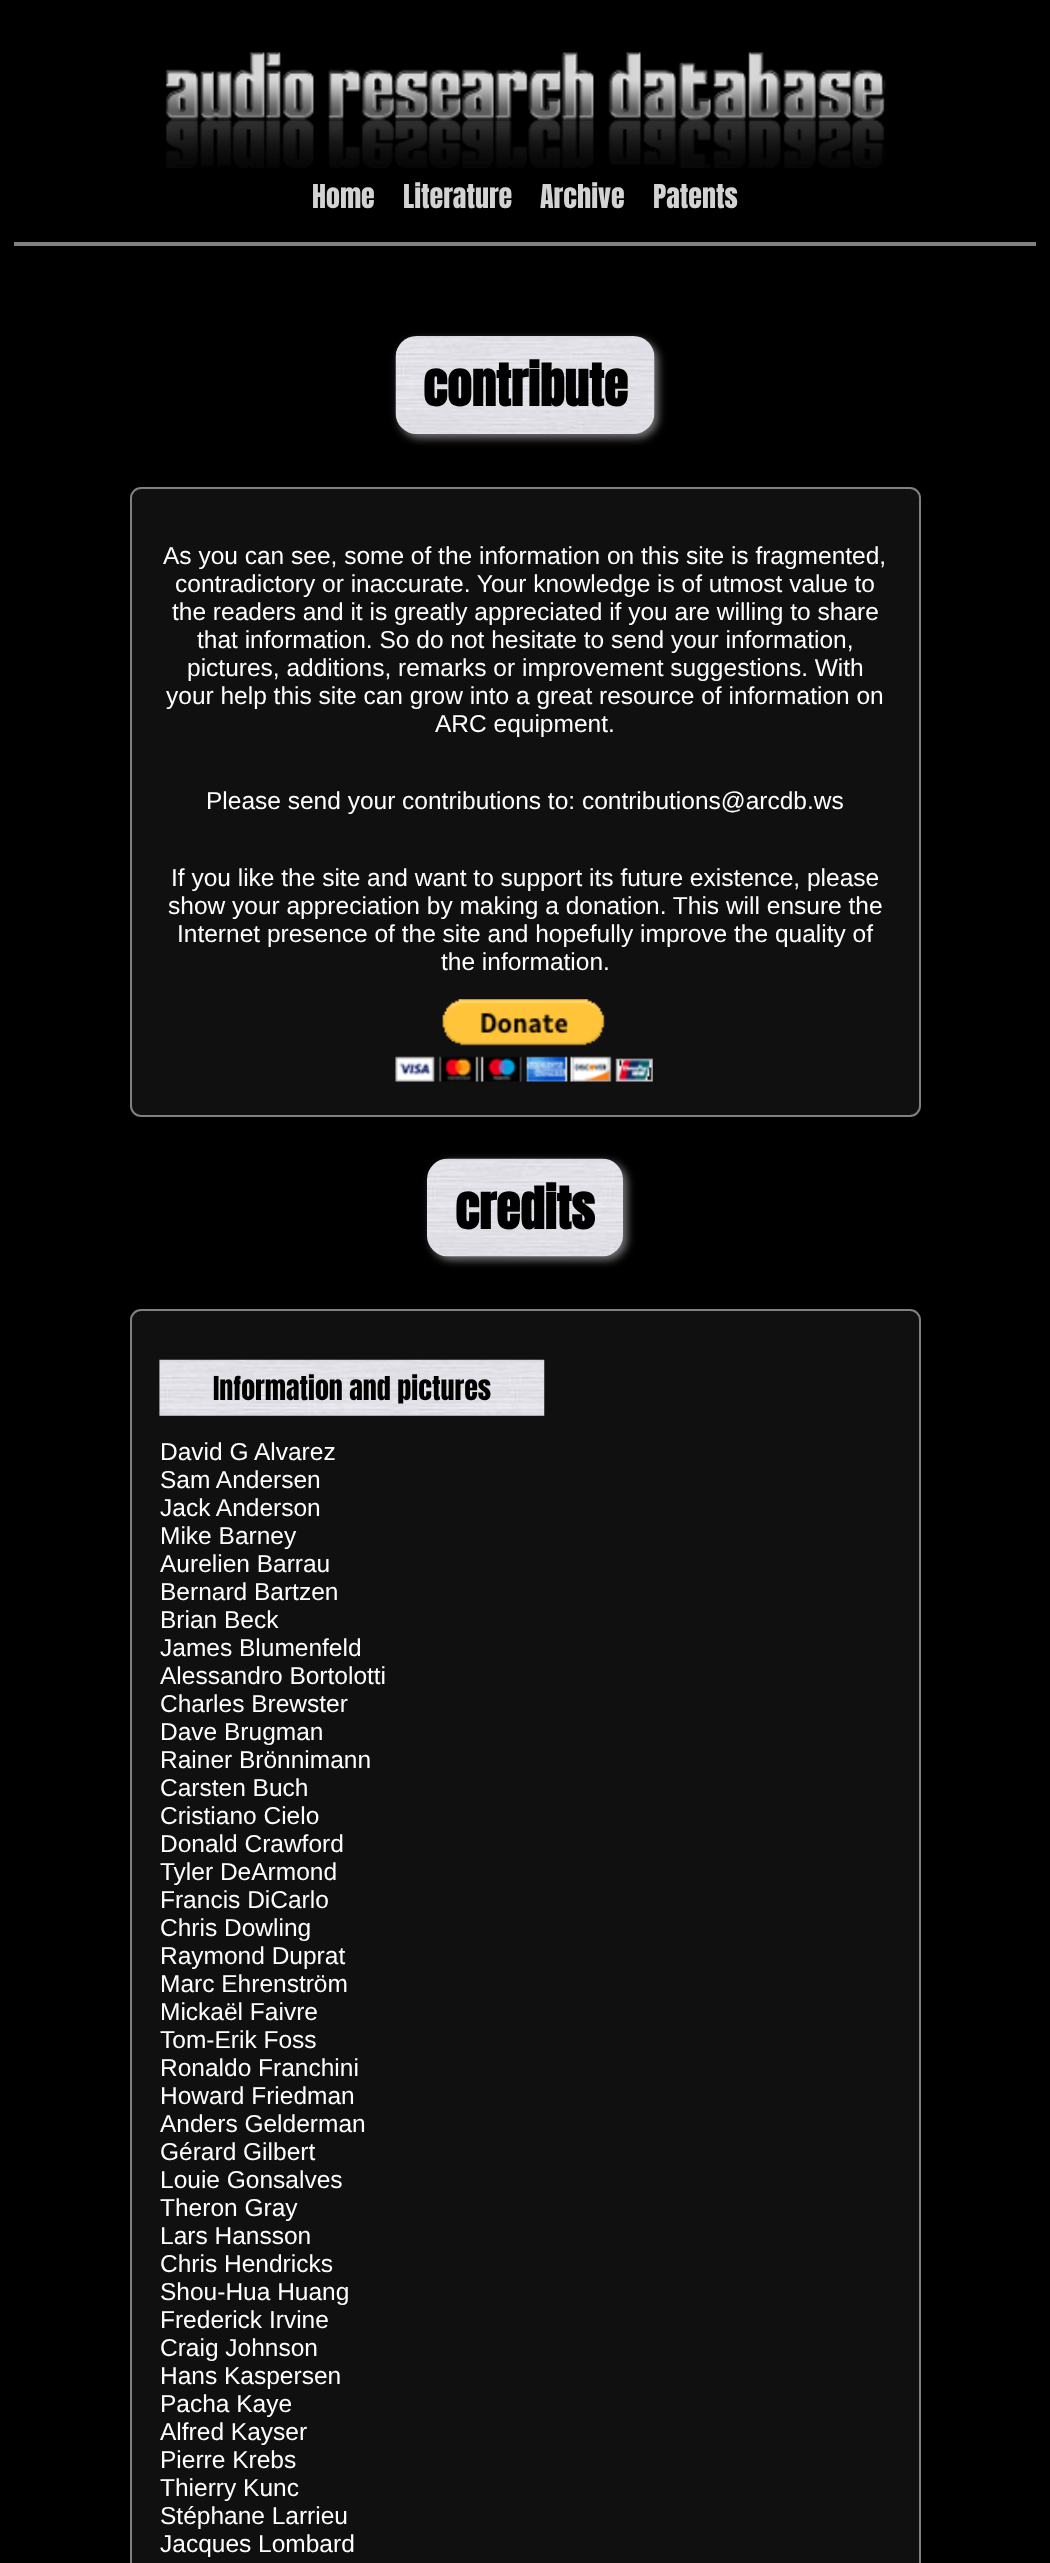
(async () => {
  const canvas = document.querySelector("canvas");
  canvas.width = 1050;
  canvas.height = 2563;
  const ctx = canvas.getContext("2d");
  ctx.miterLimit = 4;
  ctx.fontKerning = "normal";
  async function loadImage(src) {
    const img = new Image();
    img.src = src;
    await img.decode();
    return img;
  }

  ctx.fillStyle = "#000000";
  ctx.fillRect(0, 0, 1050, 2563);
  ctx.fillStyle = "#808080";
  ctx.fillRect(14, 242, 1022, 4);
  ctx.drawImage(await loadImage("img/1.png"), 165, 52, 721, 116);
  ctx.fillStyle = "#7a767a";
  ctx.filter = "blur(4.5px)";
  ctx.beginPath();
  ctx.roundRect(399, 340, 259, 98, 21);
  ctx.fill();
  ctx.filter = "none";
  ctx.drawImage(await loadImage("img/2.png"), 395, 336, 260, 98);
  ctx.fillStyle = "#101010";
  ctx.beginPath();
  ctx.roundRect(131, 488, 789, 628, 10);
  ctx.fill();
  ctx.strokeStyle = "#808080";
  ctx.lineWidth = 2;
  ctx.stroke();
  ctx.drawImage(await loadImage("img/3.png"), 395, 999, 258, 83);
  ctx.fillStyle = "#7a767a";
  ctx.filter = "blur(4.5px)";
  ctx.beginPath();
  ctx.roundRect(431, 1162, 196, 98, 21);
  ctx.fill();
  ctx.filter = "none";
  ctx.drawImage(await loadImage("img/4.png"), 427, 1158, 196, 99);
  ctx.fillStyle = "#101010";
  ctx.beginPath();
  ctx.roundRect(131, 1310, 789, 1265, 10);
  ctx.fill();
  ctx.stroke();
  ctx.drawImage(await loadImage("img/5.png"), 159, 1359, 386, 57);
  ctx.font = "28px Anton";
  ctx.fillStyle = "#d3d3d3";
  for (const [text, x, y] of [
    ["Home", 312, 208],
    ["Literature", 403, 208],
    ["Archive", 540, 208],
    ["Patents", 653, 208],
  ]) {
    ctx.fillText(text, x, y);
  }
  ctx.font = "bold 49px Anton";
  ctx.fillStyle = "#000000";
  ctx.fillText("contribute", 423, 406);
  ctx.font = "24.5px Liberation Sans";
  ctx.fillStyle = "#ffffff";
  for (const [text, x, y] of [
    ["As you can see, some of the information on this site is fragmented,", 163, 564],
    ["contradictory or inaccurate. Your knowledge is of utmost value to", 175, 592],
    ["the readers and it is greatly appreciated if you are willing to share", 172, 620],
    ["that information. So do not hesitate to send your information,", 197, 648],
    ["pictures, additions, remarks or improvement suggestions. With", 187, 676],
    ["your help this site can grow into a great resource of information on", 166, 704],
    ["ARC equipment.", 435, 732],
    ["Please send your contributions to: contributions@arcdb.ws", 206, 809],
    ["If you like the site and want to support its future existence, please", 171, 886],
    ["show your appreciation by making a donation. This will ensure the", 168, 914],
    ["Internet presence of the site and hopefully improve the quality of", 177, 942],
    ["the information.", 441, 970],
  ]) {
    ctx.fillText(text, x, y);
  }
  ctx.font = "bold 49px Anton";
  ctx.fillStyle = "#000000";
  ctx.fillText("credits", 455, 1229);
  ctx.font = "28px Anton";
  ctx.fillText("Information and pictures", 213, 1400);
  ctx.font = "24.5px Liberation Sans";
  ctx.fillStyle = "#ffffff";
  for (const [text, x, y] of [
    ["David G Alvarez", 160, 1460],
    ["Sam Andersen", 160, 1488],
    ["Jack Anderson", 160, 1516],
    ["Mike Barney", 160, 1544],
    ["Aurelien Barrau", 160, 1572],
    ["Bernard Bartzen", 160, 1600],
    ["Brian Beck", 160, 1628],
    ["James Blumenfeld", 160, 1656],
    ["Alessandro Bortolotti", 160, 1684],
    ["Charles Brewster", 160, 1712],
    ["Dave Brugman", 160, 1740],
    ["Rainer Brönnimann", 160, 1768],
    ["Carsten Buch", 160, 1796],
    ["Cristiano Cielo", 160, 1824],
    ["Donald Crawford", 160, 1852],
    ["Tyler DeArmond", 160, 1880],
    ["Francis DiCarlo", 160, 1908],
    ["Chris Dowling", 160, 1936],
    ["Raymond Duprat", 160, 1964],
    ["Marc Ehrenström", 160, 1992],
    ["Mickaël Faivre", 160, 2020],
    ["Tom-Erik Foss", 160, 2048],
    ["Ronaldo Franchini", 160, 2076],
    ["Howard Friedman", 160, 2104],
    ["Anders Gelderman", 160, 2132],
    ["Gérard Gilbert", 160, 2160],
    ["Louie Gonsalves", 160, 2188],
    ["Theron Gray", 160, 2216],
    ["Lars Hansson", 160, 2244],
    ["Chris Hendricks", 160, 2272],
    ["Shou-Hua Huang", 160, 2300],
    ["Frederick Irvine", 160, 2328],
    ["Craig Johnson", 160, 2356],
    ["Hans Kaspersen", 160, 2384],
    ["Pacha Kaye", 160, 2412],
    ["Alfred Kayser", 160, 2440],
    ["Pierre Krebs", 160, 2468],
    ["Thierry Kunc", 160, 2496],
    ["Stéphane Larrieu", 160, 2524],
    ["Jacques Lombard", 160, 2552],
  ]) {
    ctx.fillText(text, x, y);
  }
})();
